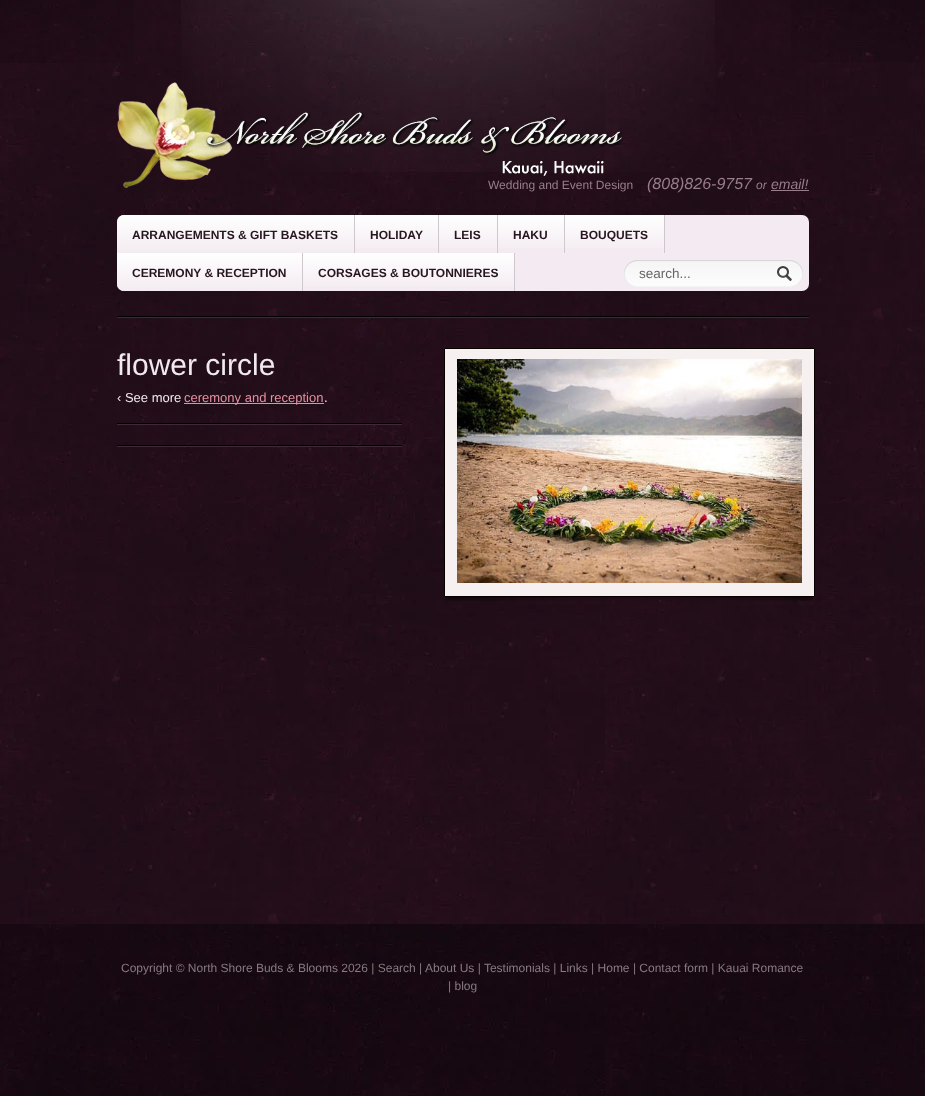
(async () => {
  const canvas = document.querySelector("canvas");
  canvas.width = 925;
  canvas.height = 1096;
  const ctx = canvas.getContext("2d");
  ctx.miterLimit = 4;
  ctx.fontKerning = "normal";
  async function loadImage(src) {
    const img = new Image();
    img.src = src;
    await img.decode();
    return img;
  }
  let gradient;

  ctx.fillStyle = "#ffffff";
  ctx.fillRect(0, 0, 925, 1096);
  ctx.drawImage(await loadImage("img/1.png"), 0, 0, 925, 924);
  ctx.drawImage(await loadImage("img/2.png"), 181, 0, 534, 172);
  ctx.drawImage(await loadImage("img/3.png"), 0, 0, 134, 63);
  ctx.drawImage(await loadImage("img/4.png"), 791, 0, 134, 62);
  ctx.fillStyle = "#3d2a38";
  ctx.fillRect(117, 317, 692, 1);
  ctx.drawImage(await loadImage("img/5.png"), 117, 82, 506, 106);
  ctx.fillStyle = "#987d8b";
  ctx.fillRect(771, 190, 38, 1);
  ctx.fillStyle = "#f3ebf1";
  ctx.beginPath();
  ctx.roundRect(117, 215, 692, 76, 7);
  ctx.fill();
  gradient = ctx.createLinearGradient(117, 215, 117, 253);
  gradient.addColorStop(0, "#ffffff");
  gradient.addColorStop(1, "#f3ebf1");
  ctx.fillStyle = gradient;
  ctx.beginPath();
  ctx.roundRect(117, 215, 238, 38, [7, 0, 0, 7]);
  ctx.fill();
  ctx.fillStyle = "#cec7cc";
  ctx.fillRect(354, 215, 1, 38);
  gradient = ctx.createLinearGradient(303, 253, 303, 291);
  gradient.addColorStop(0, "#ffffff");
  gradient.addColorStop(1, "#f3ebf1");
  ctx.fillStyle = gradient;
  ctx.fillRect(303, 253, 211, 33);
  ctx.fillStyle = "rgba(255, 255, 255, 0.2)";
  ctx.fillRect(353, 241, 1, 13);
  gradient = ctx.createLinearGradient(355, 215, 355, 253);
  gradient.addColorStop(0, "#ffffff");
  gradient.addColorStop(1, "#f3ebf1");
  ctx.fillStyle = gradient;
  ctx.fillRect(355, 215, 83, 33);
  ctx.fillStyle = "#cec7cc";
  ctx.fillRect(438, 215, 1, 38);
  ctx.fillStyle = "rgba(255, 255, 255, 0.2)";
  ctx.fillRect(437, 241, 1, 13);
  gradient = ctx.createLinearGradient(439, 215, 439, 253);
  gradient.addColorStop(0, "#ffffff");
  gradient.addColorStop(1, "#f3ebf1");
  ctx.fillStyle = gradient;
  ctx.fillRect(439, 215, 58, 33);
  ctx.fillStyle = "#cec7cc";
  ctx.fillRect(497, 215, 1, 38);
  ctx.fillStyle = "rgba(255, 255, 255, 0.2)";
  ctx.fillRect(496, 241, 1, 13);
  gradient = ctx.createLinearGradient(498, 215, 498, 253);
  gradient.addColorStop(0, "#ffffff");
  gradient.addColorStop(1, "#f3ebf1");
  ctx.fillStyle = gradient;
  ctx.fillRect(498, 215, 66, 33);
  ctx.fillStyle = "#cec7cc";
  ctx.fillRect(564, 215, 1, 38);
  ctx.fillStyle = "rgba(255, 255, 255, 0.2)";
  ctx.fillRect(563, 241, 1, 13);
  gradient = ctx.createLinearGradient(565, 215, 565, 253);
  gradient.addColorStop(0, "#ffffff");
  gradient.addColorStop(1, "#f3ebf1");
  ctx.fillStyle = gradient;
  ctx.fillRect(565, 215, 99, 33);
  ctx.fillStyle = "#cec7cc";
  ctx.fillRect(664, 215, 1, 38);
  ctx.fillStyle = "rgba(255, 255, 255, 0.2)";
  ctx.fillRect(663, 241, 1, 13);
  gradient = ctx.createLinearGradient(117, 253, 117, 291);
  gradient.addColorStop(0, "#ffffff");
  gradient.addColorStop(1, "#f3ebf1");
  ctx.fillStyle = gradient;
  ctx.beginPath();
  ctx.roundRect(117, 253, 186, 38, [0, 0, 0, 7]);
  ctx.fill();
  for (const [x, y, w, h, color] of [
    [302, 253, 1, 38, "#cec7cc"],
    [301, 279, 1, 12, "rgba(255, 255, 255, 0.2)"],
    [514, 253, 1, 38, "#cec7cc"],
    [513, 279, 1, 12, "rgba(255, 255, 255, 0.2)"],
  ]) {
    ctx.fillStyle = color;
    ctx.fillRect(x, y, w, h);
  }
  ctx.drawImage(await loadImage("img/6.png"), 624, 260, 179, 27);
  ctx.drawImage(await loadImage("img/7.png"), 777, 266, 15, 15);
  for (const [x, y, w, h, color] of [
    [117, 316, 692, 1, "#000000"],
    [117, 424, 285, 1, "#3d2a38"],
    [184, 403, 140, 1, "#e590a0"],
    [117, 423, 285, 1, "#000000"],
    [117, 446, 285, 1, "#3d2a38"],
    [117, 445, 285, 1, "#000000"],
  ]) {
    ctx.fillStyle = color;
    ctx.fillRect(x, y, w, h);
  }
  ctx.drawImage(await loadImage("img/8.png"), 445, 597, 368, 4);
  ctx.fillStyle = "#f7f0f1";
  ctx.beginPath();
  ctx.rect(444.5, 348.5, 370, 248);
  ctx.fill();
  ctx.strokeStyle = "#080000";
  ctx.stroke();
  ctx.drawImage(await loadImage("img/9.png"), 457, 359, 345, 224);
  ctx.drawImage(await loadImage("img/10.png"), 0, 924, 925, 172);
  ctx.font = "12px Liberation Sans";
  ctx.fillStyle = "#987d8b";
  ctx.fillText("Wedding and Event Design", 488, 189);
  ctx.font = "italic 16px Liberation Sans";
  ctx.fillText("(808)826-9757", 647, 189);
  ctx.font = "italic 12px Liberation Sans";
  ctx.fillText("or", 756, 189);
  ctx.font = "italic 14px Liberation Sans";
  ctx.fillText("email!", 771, 189);
  ctx.font = "bold 12px Liberation Sans";
  ctx.fillStyle = "#27161f";
  for (const [text, x, y] of [
    ["ARRANGEMENTS & GIFT BASKETS", 132, 239],
    ["HOLIDAY", 370, 239],
    ["LEIS", 454, 239],
    ["HAKU", 513, 239],
    ["BOUQUETS", 580, 239],
    ["CEREMONY & RECEPTION", 132, 277],
    ["CORSAGES & BOUTONNIERES", 318, 277],
  ]) {
    ctx.fillText(text, x, y);
  }
  ctx.font = "13.5px Liberation Sans";
  ctx.fillStyle = "#666666";
  ctx.fillText("search...", 639, 278);
  ctx.font = "30px Liberation Sans";
  ctx.fillStyle = "#f0e9f0";
  ctx.fillText("flower circle", 117, 375);
  ctx.font = "13px Liberation Sans";
  ctx.fillText("‹ See more", 117, 402);
  ctx.fillStyle = "#e590a0";
  ctx.fillText("ceremony and reception", 184, 402);
  ctx.fillStyle = "#f0e9f0";
  ctx.fillText(".", 324, 402);
  ctx.font = "12px Liberation Sans";
  ctx.fillStyle = "#897981";
  for (const [text, x, y] of [
    ["Copyright © North Shore Buds & Blooms 2026 | Search |", 121, 972],
    ["About Us | Testimonials | Links | Home | Contact form | Kauai Romance", 425, 972],
    ["| blog", 448, 990],
  ]) {
    ctx.fillText(text, x, y);
  }
})();
